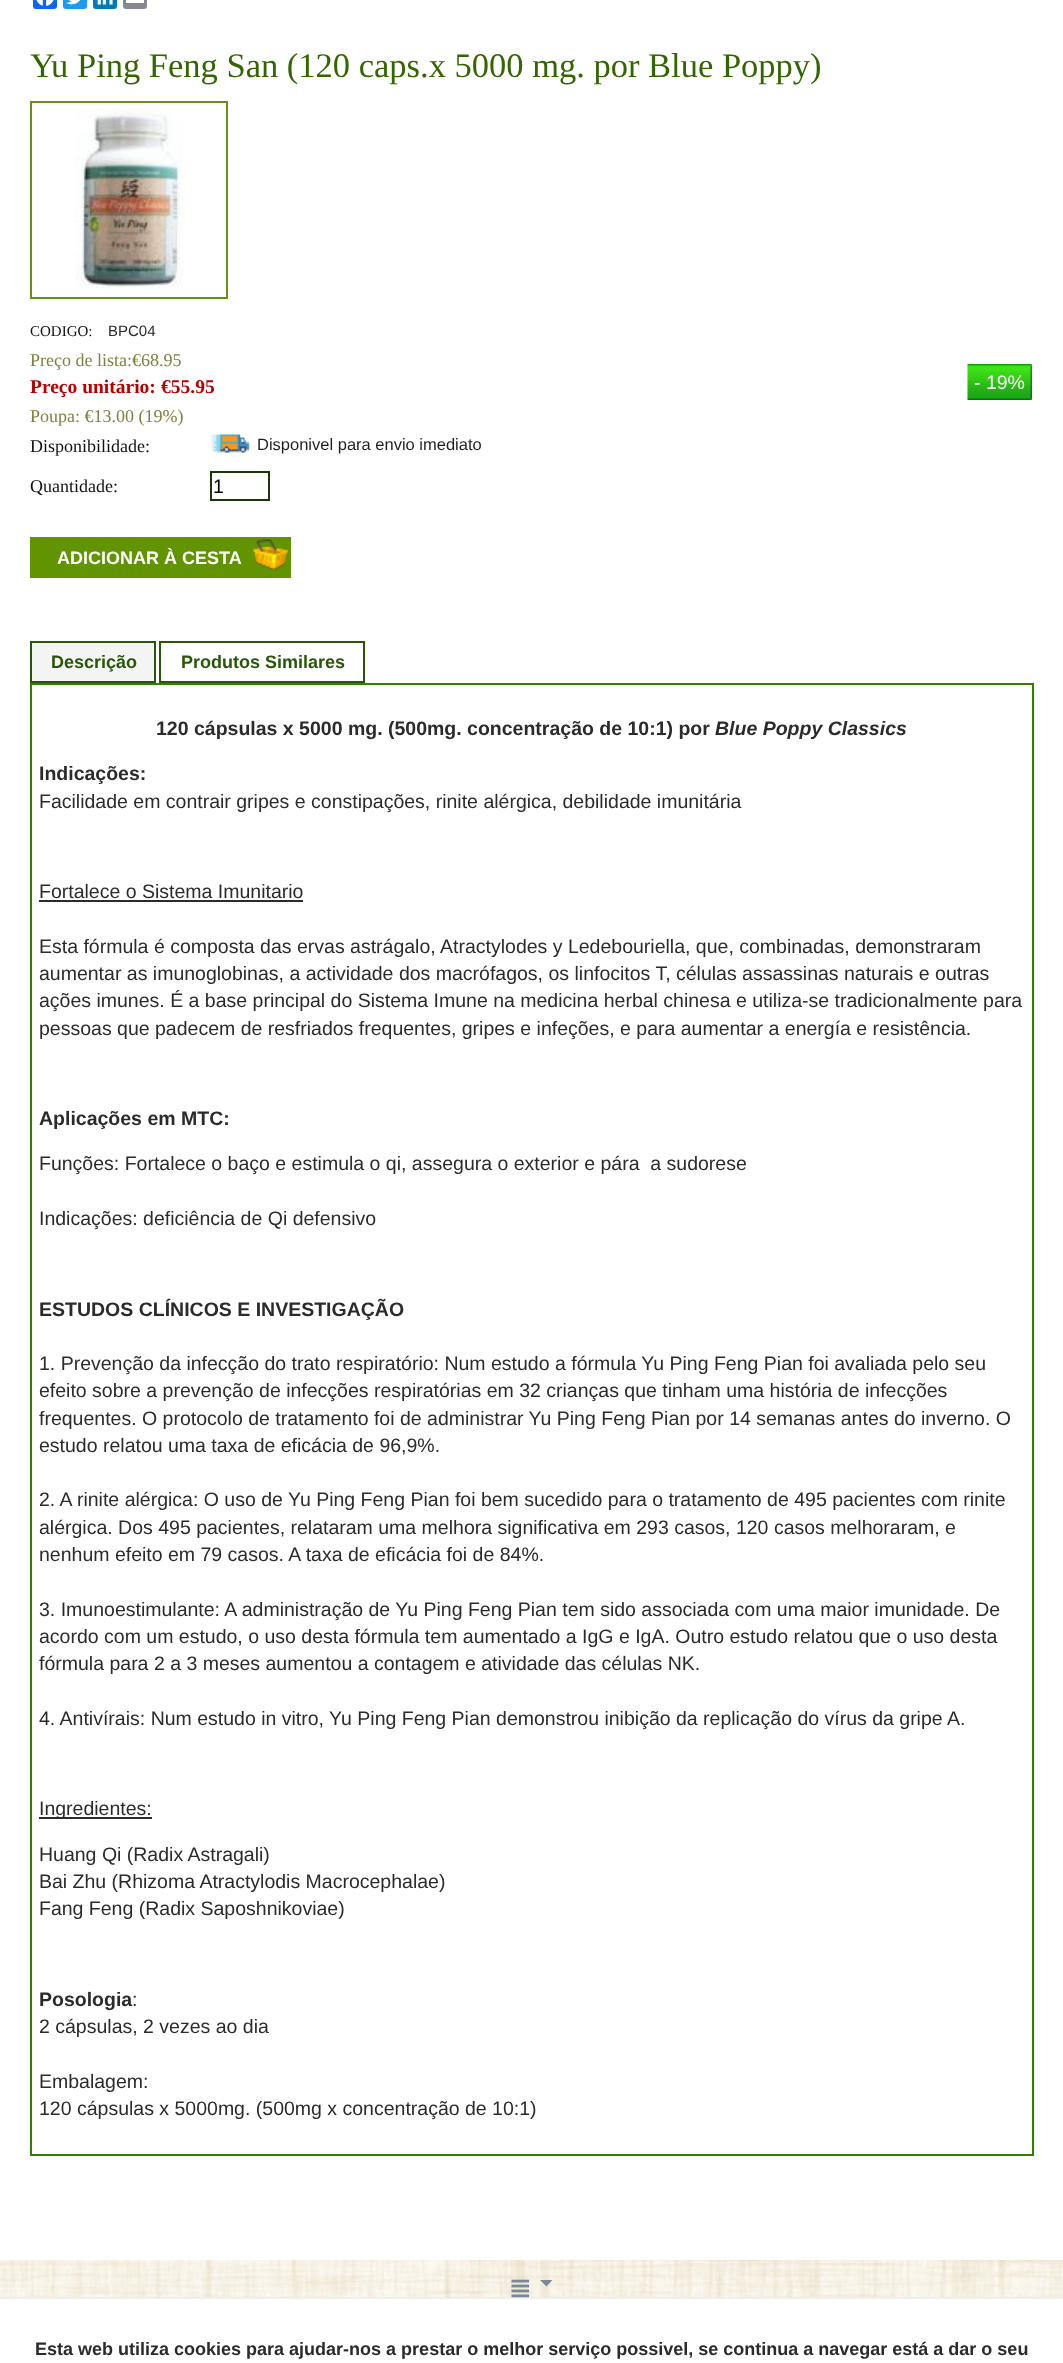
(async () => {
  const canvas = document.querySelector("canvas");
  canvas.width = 1063;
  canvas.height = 2363;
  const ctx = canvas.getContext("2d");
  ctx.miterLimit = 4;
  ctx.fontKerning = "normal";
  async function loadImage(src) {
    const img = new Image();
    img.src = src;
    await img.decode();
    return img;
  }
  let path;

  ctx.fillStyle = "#ffffff";
  ctx.fillRect(0, 0, 1063, 2363);
  ctx.fillStyle = "#0866ff";
  ctx.beginPath();
  ctx.roundRect(33, -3, 24, 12, 3);
  ctx.fill();
  ctx.drawImage(await loadImage("img/1.png"), 36, 0, 18, 6);
  ctx.fillStyle = "#1d9bf0";
  ctx.beginPath();
  ctx.roundRect(63, -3, 24, 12, 3);
  ctx.fill();
  ctx.drawImage(await loadImage("img/2.png"), 66, 0, 14, 5);
  ctx.fillStyle = "#007bb5";
  ctx.beginPath();
  ctx.roundRect(93, -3, 24, 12, 3);
  ctx.fill();
  ctx.drawImage(await loadImage("img/3.png"), 97, 0, 16, 5);
  ctx.fillStyle = "#888990";
  ctx.beginPath();
  ctx.roundRect(123, -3, 24, 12, 3);
  ctx.fill();
  ctx.fillStyle = "#ffffff";
  ctx.fillRect(126, 0, 18, 3);
  ctx.strokeStyle = "#659311";
  ctx.lineWidth = 2;
  ctx.strokeRect(31, 102, 196, 196);
  ctx.drawImage(await loadImage("img/4.png"), 75, 109, 108, 180);
  ctx.drawImage(await loadImage("img/5.png"), 967, 364, 65, 36);
  ctx.drawImage(await loadImage("img/6.png"), 211, 434, 39, 19);
  ctx.strokeStyle = "#1b3808";
  ctx.strokeRect(211, 472, 58, 28);
  ctx.fillStyle = "#629402";
  ctx.fillRect(30, 537, 261, 41);
  ctx.drawImage(await loadImage("img/7.png"), 253, 539, 36, 38);
  ctx.fillStyle = "#338000";
  ctx.fillRect(30, 683, 1004, 2);
  ctx.fillStyle = "#f4f4f4";
  ctx.beginPath();
  ctx.rect(31, 642, 124, 40);
  ctx.fill();
  ctx.strokeStyle = "#285709";
  ctx.stroke();
  ctx.strokeRect(160, 642, 204, 40);
  for (const [x, y, w, h, color] of [
    [1032, 684, 2, 1472, "#338000"],
    [30, 2154, 1004, 2, "#338000"],
    [30, 684, 2, 1472, "#338000"],
    [39, 900, 264, 2, "#2c2b2b"],
    [39, 1817, 113, 2, "#2c2b2b"],
  ]) {
    ctx.fillStyle = color;
    ctx.fillRect(x, y, w, h);
  }
  ctx.drawImage(await loadImage("img/8.png"), 0, 2260, 1063, 37);
  ctx.fillStyle = "#edeff1";
  ctx.fillRect(0, 2297, 1063, 2);
  ctx.drawImage(await loadImage("img/9.png"), 511, 2279, 19, 19);
  ctx.fillStyle = "#7a8998";
  path = new Path2D("M546.5 2286.5L540 2280H552.5Z");
  ctx.fill(path);
  ctx.font = "34.5px Liberation Serif";
  ctx.fillStyle = "#336600";
  ctx.fillText("Yu Ping Feng San (120 caps.x 5000 mg. por Blue Poppy)", 30, 77);
  ctx.font = "15px Liberation Serif";
  ctx.fillStyle = "#121212";
  ctx.fillText("CODIGO:", 30, 336);
  ctx.font = "15px Liberation Sans";
  ctx.fillStyle = "#2c2b2b";
  ctx.fillText("BPC04", 108, 336);
  ctx.font = "18px Liberation Serif";
  ctx.fillStyle = "#808040";
  ctx.fillText("Preço de lista:€68.95", 30, 366);
  ctx.font = "bold 19.5px Liberation Serif";
  ctx.fillStyle = "#b80000";
  ctx.fillText("Preço unitário:", 30, 393);
  ctx.fillText("€55.95", 161, 393);
  ctx.font = "19.5px Liberation Sans";
  ctx.fillStyle = "#ffffff";
  ctx.fillText("- 19%", 974, 389);
  ctx.font = "18px Liberation Serif";
  ctx.fillStyle = "#808040";
  ctx.fillText("Poupa: €13.00 (19%)", 30, 422);
  ctx.fillStyle = "#121212";
  ctx.fillText("Disponibilidade:", 30, 452);
  ctx.font = "16.5px Liberation Sans";
  ctx.fillStyle = "#1f1f1f";
  ctx.fillText("Disponivel para envio imediato", 257, 450);
  ctx.font = "18px Liberation Serif";
  ctx.fillStyle = "#121212";
  ctx.fillText("Quantidade:", 30, 492);
  ctx.font = "19.5px Liberation Sans";
  ctx.fillStyle = "#000000";
  ctx.fillText("1", 213, 493);
  ctx.font = "bold 18px Liberation Sans";
  ctx.fillStyle = "#ffffff";
  ctx.fillText("ADICIONAR À CESTA", 57, 564);
  ctx.fillStyle = "#285709";
  ctx.fillText("Descrição", 51, 668);
  ctx.fillText("Produtos Similares", 181, 668);
  ctx.font = "bold 19.5px Liberation Sans";
  ctx.fillStyle = "#2c2b2b";
  ctx.fillText("120 cápsulas x 5000 mg. (500mg. concentração de 10:1) por", 156, 735);
  ctx.font = "italic bold 19.5px Liberation Sans";
  ctx.fillText("Blue Poppy Classics", 715, 735);
  ctx.font = "bold 19.5px Liberation Sans";
  ctx.fillText("Indicações:", 39, 780);
  ctx.font = "19.5px Liberation Sans";
  for (const [text, x, y] of [
    ["Facilidade em contrair gripes e constipações, rinite alérgica, debilidade imunitária", 39, 808],
    ["Fortalece o Sistema Imunitario", 39, 898],
    ["Esta fórmula é composta das ervas astrágalo, Atractylodes y Ledebouriella, que, combinadas, demonstraram", 39, 953],
    ["aumentar as imunoglobinas, a actividade dos macrófagos, os linfocitos T, células assassinas naturais e outras", 39, 980],
    ["ações imunes. É a base principal do Sistema Imune na medicina herbal chinesa e utiliza-se tradicionalmente para", 39, 1007],
    ["pessoas que padecem de resfriados frequentes, gripes e infeções, e para aumentar a energía e resistência.", 39, 1035],
  ]) {
    ctx.fillText(text, x, y);
  }
  ctx.font = "bold 19.5px Liberation Sans";
  ctx.fillText("Aplicações em MTC:", 39, 1125);
  ctx.font = "19.5px Liberation Sans";
  ctx.fillText("Funções: Fortalece o baço e estimula o qi, assegura o exterior e pára  a sudorese", 39, 1170);
  ctx.fillText("Indicações: deficiência de Qi defensivo", 39, 1225);
  ctx.font = "bold 19.5px Liberation Sans";
  ctx.fillText("ESTUDOS CLÍNICOS E INVESTIGAÇÃO", 39, 1316);
  ctx.font = "19.5px Liberation Sans";
  for (const [text, x, y] of [
    ["1. Prevenção da infecção do trato respiratório: Num estudo a fórmula Yu Ping Feng Pian foi avaliada pelo seu", 39, 1370],
    ["efeito sobre a prevenção de infecções respiratórias em 32 crianças que tinham uma história de infecções", 39, 1397],
    ["frequentes. O protocolo de tratamento foi de administrar Yu Ping Feng Pian por 14 semanas antes do inverno. O", 39, 1425],
    ["estudo relatou uma taxa de eficácia de 96,9%.", 39, 1452],
    ["2. A rinite alérgica: O uso de Yu Ping Feng Pian foi bem sucedido para o tratamento de 495 pacientes com rinite", 39, 1506],
    ["alérgica. Dos 495 pacientes, relataram uma melhora significativa em 293 casos, 120 casos melhoraram, e", 39, 1534],
    ["nenhum efeito em 79 casos. A taxa de eficácia foi de 84%.", 39, 1561],
    ["3. Imunoestimulante: A administração de Yu Ping Feng Pian tem sido associada com uma maior imunidade. De", 39, 1616],
    ["acordo com um estudo, o uso desta fórmula tem aumentado a IgG e IgA. Outro estudo relatou que o uso desta", 39, 1643],
    ["fórmula para 2 a 3 meses aumentou a contagem e atividade das células NK.", 39, 1670],
    ["4. Antivírais: Num estudo in vitro, Yu Ping Feng Pian demonstrou inibição da replicação do vírus da gripe A.", 39, 1725],
    ["Ingredientes:", 39, 1815],
    ["Huang Qi (Radix Astragali)", 39, 1861],
    ["Bai Zhu (Rhizoma Atractylodis Macrocephalae)", 39, 1888],
    ["Fang Feng (Radix Saposhnikoviae)", 39, 1915],
  ]) {
    ctx.fillText(text, x, y);
  }
  ctx.font = "bold 19.5px Liberation Sans";
  ctx.fillText("Posologia", 39, 2006);
  ctx.font = "19.5px Liberation Sans";
  for (const [text, x, y] of [
    [":", 132, 2006],
    ["2 cápsulas, 2 vezes ao dia", 39, 2033],
    ["Embalagem:", 39, 2088],
    ["120 cápsulas x 5000mg. (500mg x concentração de 10:1)", 39, 2115],
  ]) {
    ctx.fillText(text, x, y);
  }
  ctx.font = "bold 18px Liberation Sans";
  ctx.fillText("Esta web utiliza cookies para ajudar-nos a prestar o melhor serviço possivel, se continua a navegar está a dar o seu", 35, 2355);
})();
